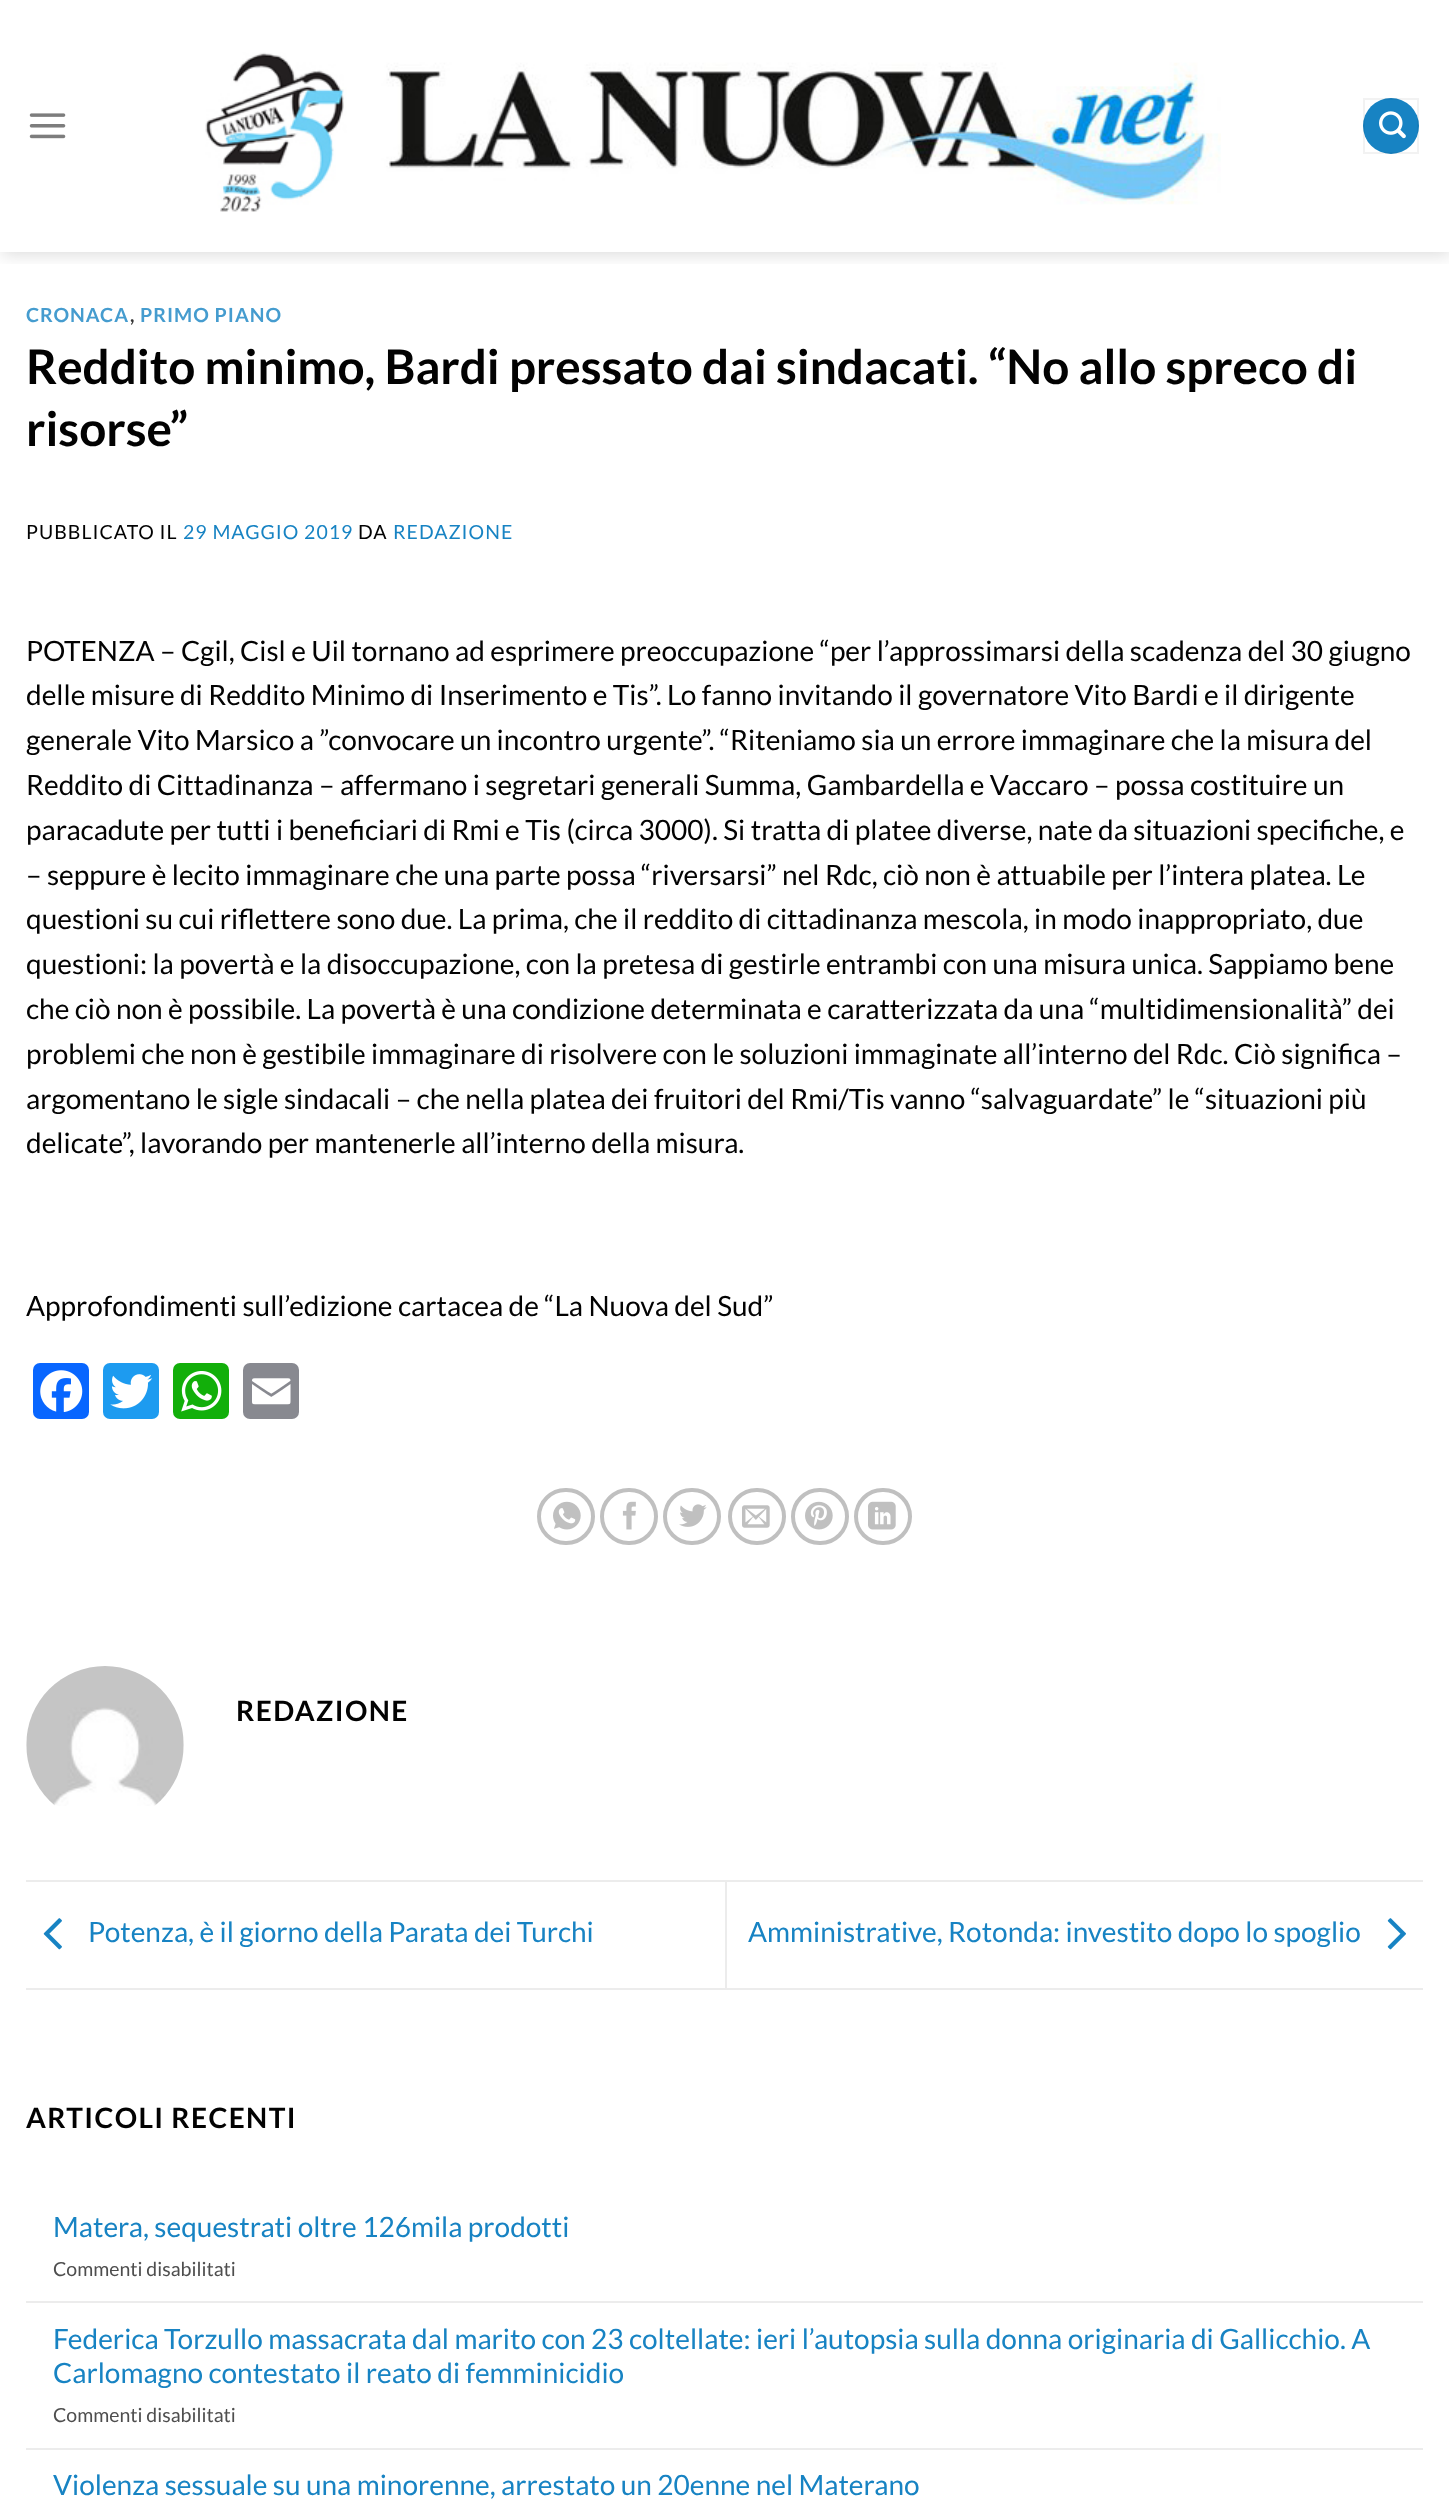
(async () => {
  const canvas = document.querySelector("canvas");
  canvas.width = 1449;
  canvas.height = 2507;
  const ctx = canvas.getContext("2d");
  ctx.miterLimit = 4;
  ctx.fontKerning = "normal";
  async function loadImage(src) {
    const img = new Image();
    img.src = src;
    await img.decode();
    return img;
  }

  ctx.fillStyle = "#ffffff";
  ctx.fillRect(0, 0, 1449, 2507);
  ctx.save();
  ctx.beginPath();
  ctx.rect(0, 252, 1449, 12);
  ctx.clip();
  ctx.fillStyle = "rgba(0, 0, 0, 0.15)";
  ctx.filter = "blur(9px)";
  ctx.beginPath();
  ctx.rect(2, 2, 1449, 252);
  ctx.fill();
  ctx.filter = "none";
  ctx.restore();
  ctx.drawImage(await loadImage("img/1.png"), 29, 113, 37, 26);
  ctx.drawImage(await loadImage("img/2.png"), 205, 52, 1016, 160);
  ctx.fillStyle = "#1783c3";
  ctx.beginPath();
  ctx.arc(1391, 126, 28, 0, Math.PI * 2);
  ctx.fill();
  ctx.strokeStyle = "rgba(0, 0, 0, 0.05)";
  ctx.lineWidth = 2;
  ctx.strokeRect(1364, 99, 54, 54);
  ctx.drawImage(await loadImage("img/3.png"), 1379, 111, 27, 28);
  ctx.fillStyle = "#0866ff";
  ctx.beginPath();
  ctx.roundRect(33, 1363, 56, 56, 7);
  ctx.fill();
  ctx.drawImage(await loadImage("img/4.png"), 40, 1370, 43, 42);
  ctx.fillStyle = "#1d9bf0";
  ctx.beginPath();
  ctx.roundRect(103, 1363, 56, 56, 7);
  ctx.fill();
  ctx.drawImage(await loadImage("img/5.png"), 110, 1374, 43, 35);
  ctx.fillStyle = "#12af0a";
  ctx.beginPath();
  ctx.roundRect(173, 1363, 56, 56, 7);
  ctx.fill();
  ctx.drawImage(await loadImage("img/6.png"), 181, 1371, 41, 41);
  ctx.fillStyle = "#888990";
  ctx.beginPath();
  ctx.roundRect(243, 1363, 56, 56, 7);
  ctx.fill();
  ctx.drawImage(await loadImage("img/7.png"), 252, 1378, 39, 27);
  ctx.beginPath();
  ctx.roundRect(539, 1490, 54, 53, 26.5);
  ctx.strokeStyle = "#c0c0c0";
  ctx.lineWidth = 4;
  ctx.stroke();
  ctx.drawImage(await loadImage("img/8.png"), 553, 1501, 28, 29);
  ctx.beginPath();
  ctx.roundRect(602, 1490, 54, 53, 26.5);
  ctx.stroke();
  ctx.drawImage(await loadImage("img/9.png"), 622, 1501, 14, 29);
  ctx.beginPath();
  ctx.roundRect(665, 1490, 54, 53, 26.5);
  ctx.stroke();
  ctx.drawImage(await loadImage("img/10.png"), 679, 1504, 28, 23);
  ctx.beginPath();
  ctx.roundRect(730, 1490, 54, 53, 26.5);
  ctx.stroke();
  ctx.drawImage(await loadImage("img/11.png"), 742, 1505, 28, 23);
  ctx.beginPath();
  ctx.roundRect(793, 1490, 54, 53, 26.5);
  ctx.stroke();
  ctx.drawImage(await loadImage("img/12.png"), 805, 1501, 28, 29);
  ctx.beginPath();
  ctx.roundRect(856, 1490, 54, 53, 26.5);
  ctx.stroke();
  ctx.drawImage(await loadImage("img/13.png"), 868, 1501, 28, 29);
  ctx.drawImage(await loadImage("img/14.png"), 26, 1666, 158, 140);
  ctx.fillStyle = "#ececec";
  ctx.fillRect(26, 1880, 1397, 2);
  ctx.fillRect(26, 1988, 1397, 2);
  ctx.drawImage(await loadImage("img/15.png"), 43, 1918, 19, 32);
  ctx.fillRect(725, 1881, 2, 107);
  ctx.drawImage(await loadImage("img/16.png"), 1387, 1918, 19, 32);
  ctx.fillRect(26, 2301, 1397, 2);
  ctx.fillRect(26, 2448, 1397, 2);
  ctx.letterSpacing = "1px";
  ctx.font = "bold 19.5px Lato";
  ctx.fillStyle = "#459ccf";
  ctx.fillText("CRONACA", 26, 322);
  ctx.fillStyle = "#353535";
  ctx.fillText(",", 130, 322);
  ctx.fillStyle = "#459ccf";
  ctx.fillText("PRIMO PIANO", 140, 322);
  ctx.letterSpacing = "0px";
  ctx.font = "bold 47.6px Lato";
  ctx.fillStyle = "#020202";
  ctx.fillText("Reddito minimo, Bardi pressato dai sindacati. “No allo spreco di", 26, 384);
  ctx.fillText("risorse”", 26, 446);
  ctx.letterSpacing = "1px";
  ctx.font = "19.5px Lato";
  ctx.fillText("PUBBLICATO IL", 26, 539);
  ctx.fillStyle = "#1783c3";
  ctx.fillText("29 MAGGIO 2019", 183, 539);
  ctx.fillStyle = "#020202";
  ctx.fillText("DA", 358, 539);
  ctx.fillStyle = "#1783c3";
  ctx.fillText("REDAZIONE", 393, 539);
  ctx.letterSpacing = "0px";
  ctx.font = "28px Lato";
  ctx.fillStyle = "#020202";
  for (const [text, x, y] of [
    ["POTENZA – Cgil, Cisl e Uil tornano ad esprimere preoccupazione “per l’approssimarsi della scadenza del 30 giugno", 26, 661],
    ["delle misure di Reddito Minimo di Inserimento e Tis”. Lo fanno invitando il governatore Vito Bardi e il dirigente", 26, 705],
    ["generale Vito Marsico a ”convocare un incontro urgente”. “Riteniamo sia un errore immaginare che la misura del", 26, 750],
    ["Reddito di Cittadinanza – affermano i segretari generali Summa, Gambardella e Vaccaro – possa costituire un", 26, 795],
    ["paracadute per tutti i beneficiari di Rmi e Tis (circa 3000). Si tratta di platee diverse, nate da situazioni specifiche, e", 26, 840],
    ["– seppure è lecito immaginare che una parte possa “riversarsi” nel Rdc, ciò non è attuabile per l’intera platea. Le", 26, 885],
    ["questioni su cui riflettere sono due. La prima, che il reddito di cittadinanza mescola, in modo inappropriato, due", 26, 929],
    ["questioni: la povertà e la disoccupazione, con la pretesa di gestirle entrambi con una misura unica. Sappiamo bene", 26, 974],
    ["che ciò non è possibile. La povertà è una condizione determinata e caratterizzata da una “multidimensionalità” dei", 26, 1019],
    ["problemi che non è gestibile immaginare di risolvere con le soluzioni immaginate all’interno del Rdc. Ciò significa –", 26, 1064],
    ["argomentano le sigle sindacali – che nella platea dei fruitori del Rmi/Tis vanno “salvaguardate” le “situazioni più", 26, 1109],
    ["delicate”, lavorando per mantenerle all’interno della misura.", 26, 1153],
    ["Approfondimenti sull’edizione cartacea de “La Nuova del Sud”", 26, 1316],
  ]) {
    ctx.fillText(text, x, y);
  }
  ctx.letterSpacing = "1.4px";
  ctx.font = "bold 28px Lato";
  ctx.fillText("REDAZIONE", 236, 1721);
  ctx.letterSpacing = "0px";
  ctx.font = "28px Lato";
  ctx.fillStyle = "#1783c3";
  ctx.fillText("Potenza, è il giorno della Parata dei Turchi", 88, 1942);
  ctx.fillText("Amministrative, Rotonda: investito dopo lo spoglio", 748, 1942);
  ctx.letterSpacing = "1.4px";
  ctx.font = "bold 28px Lato";
  ctx.fillStyle = "#020202";
  ctx.fillText("ARTICOLI RECENTI", 26, 2128);
  ctx.letterSpacing = "0px";
  ctx.font = "28px Lato";
  ctx.fillStyle = "#1783c3";
  ctx.fillText("Matera, sequestrati oltre 126mila prodotti", 53, 2237);
  ctx.font = "19.5px Lato";
  ctx.fillStyle = "#4e4e4e";
  ctx.fillText("Commenti disabilitati", 53, 2276);
  ctx.font = "28px Lato";
  ctx.fillStyle = "#1783c3";
  ctx.fillText("Federica Torzullo massacrata dal marito con 23 coltellate: ieri l’autopsia sulla donna originaria di Gallicchio. A", 53, 2349);
  ctx.fillText("Carlomagno contestato il reato di femminicidio", 53, 2383);
  ctx.font = "19.5px Lato";
  ctx.fillStyle = "#4e4e4e";
  ctx.fillText("Commenti disabilitati", 53, 2422);
  ctx.font = "28px Lato";
  ctx.fillStyle = "#1783c3";
  ctx.fillText("Violenza sessuale su una minorenne, arrestato un 20enne nel Materano", 53, 2495);
})();
